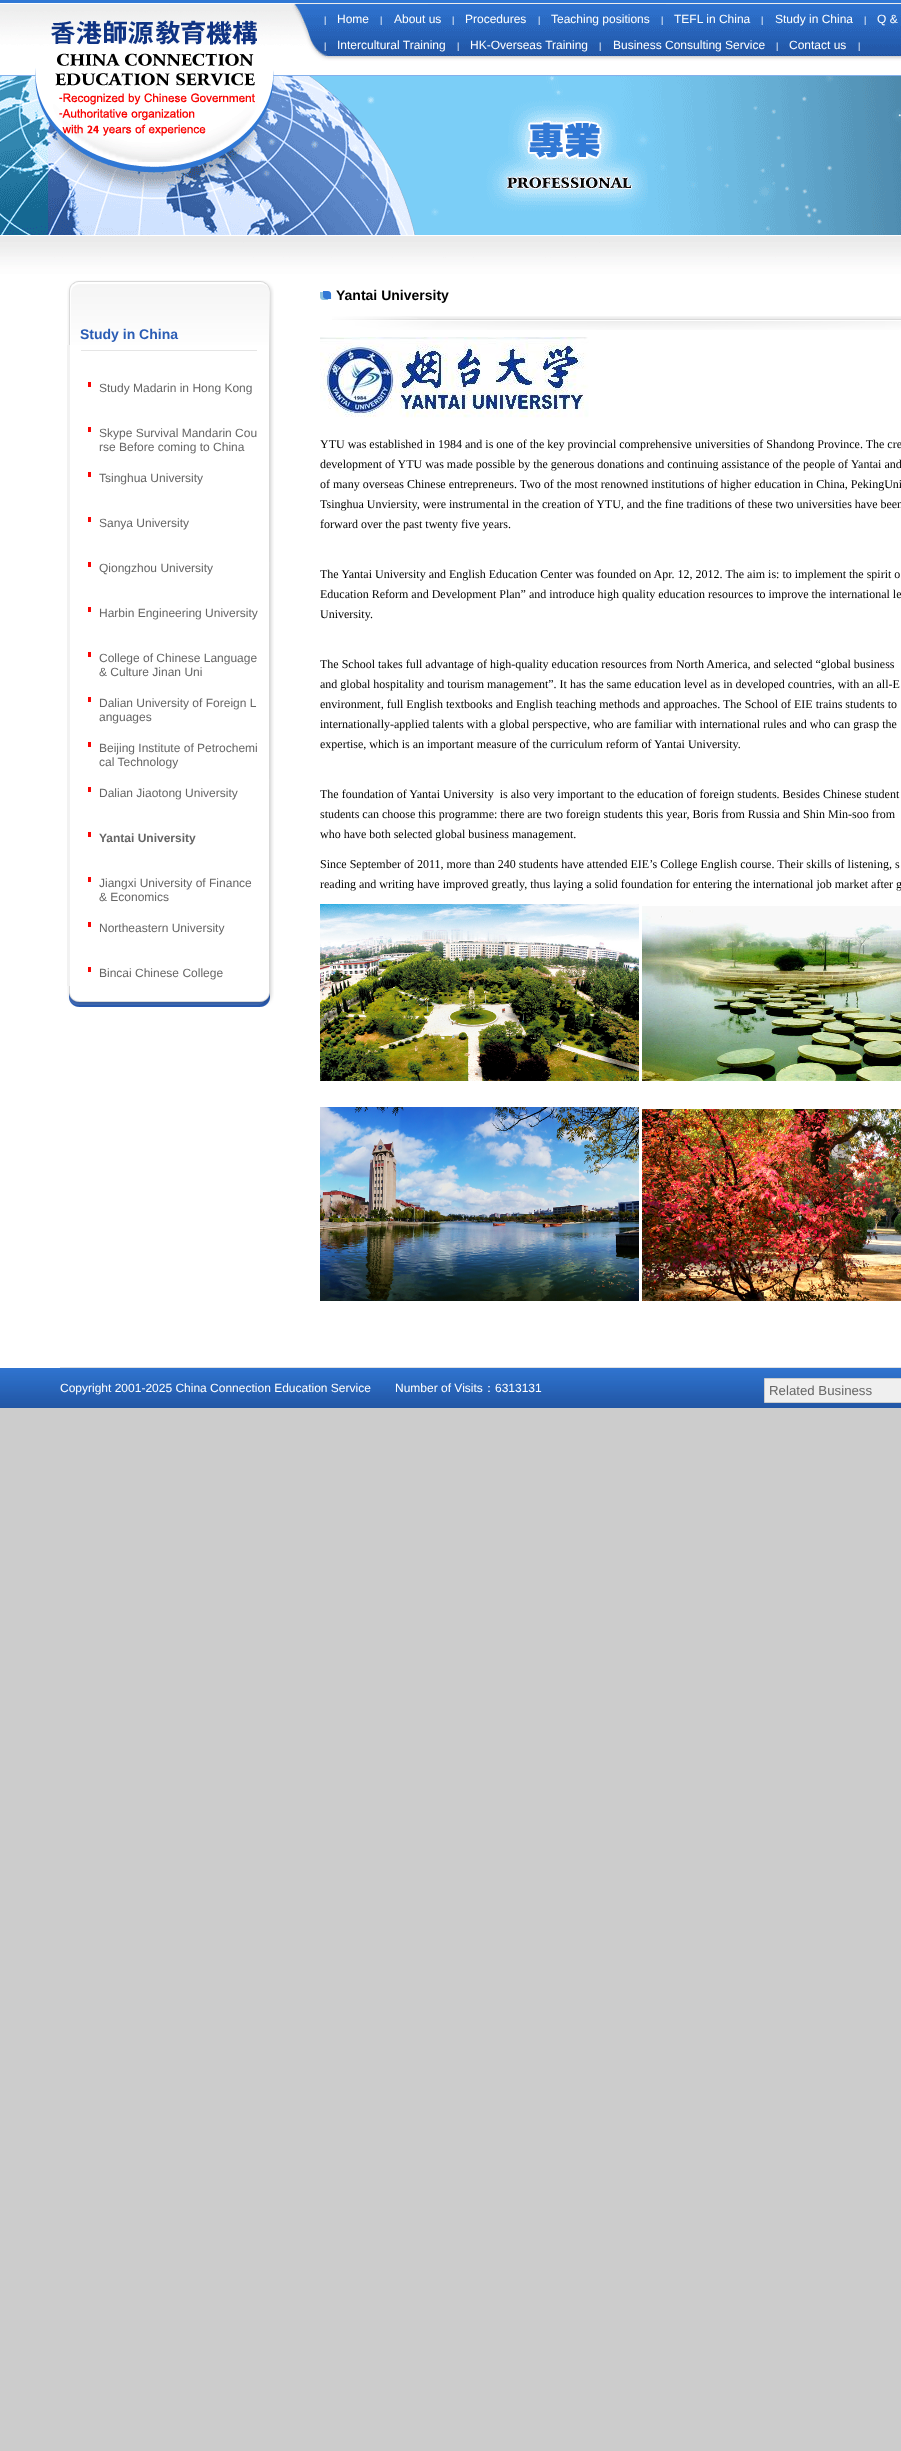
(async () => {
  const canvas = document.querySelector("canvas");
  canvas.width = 901;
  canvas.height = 2451;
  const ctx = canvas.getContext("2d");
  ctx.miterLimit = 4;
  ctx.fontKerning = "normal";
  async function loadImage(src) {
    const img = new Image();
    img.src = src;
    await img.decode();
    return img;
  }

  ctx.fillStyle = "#cccccc";
  ctx.fillRect(0, 0, 901, 2451);
  ctx.drawImage(await loadImage("img/1.png"), 0, 0, 901, 277);
  ctx.drawImage(await loadImage("img/2.png"), 51, 20, 206, 116);
  ctx.fillStyle = "#ffffff";
  ctx.fillRect(0, 277, 901, 1091);
  ctx.drawImage(await loadImage("img/3.png"), 67, 280, 207, 65);
  for (const [x, y, w, h, color] of [
    [67, 345, 3, 641, "#f2f2f2"],
    [81, 350, 176, 1, "#e5e5e5"],
    [88, 382, 3, 5, "#f80604"],
    [88, 427, 3, 5, "#f80604"],
    [88, 472, 3, 5, "#f80604"],
    [88, 517, 3, 5, "#f80604"],
    [88, 562, 3, 5, "#f80604"],
    [88, 607, 3, 5, "#f80604"],
    [88, 652, 3, 5, "#f80604"],
    [88, 697, 3, 5, "#f80604"],
    [88, 742, 3, 5, "#f80604"],
    [88, 787, 3, 5, "#f80604"],
    [88, 832, 3, 5, "#f80604"],
    [88, 877, 3, 5, "#f80604"],
    [88, 922, 3, 5, "#f80604"],
    [88, 967, 3, 5, "#f80604"],
  ]) {
    ctx.fillStyle = color;
    ctx.fillRect(x, y, w, h);
  }
  ctx.drawImage(await loadImage("img/4.png"), 269, 345, 5, 641);
  ctx.drawImage(await loadImage("img/5.png"), 67, 986, 207, 21);
  ctx.drawImage(await loadImage("img/6.png"), 332, 316, 569, 14);
  ctx.drawImage(await loadImage("img/7.png"), 320, 291, 12, 9);
  ctx.drawImage(await loadImage("img/8.png"), 320, 337, 269, 81);
  ctx.drawImage(await loadImage("img/9.png"), 320, 904, 319, 177);
  ctx.drawImage(await loadImage("img/10.png"), 642, 906, 259, 175);
  ctx.drawImage(await loadImage("img/11.png"), 320, 1107, 319, 194);
  ctx.drawImage(await loadImage("img/12.png"), 642, 1109, 259, 192);
  ctx.fillStyle = "#e1e1e1";
  ctx.fillRect(60, 1367, 841, 1);
  ctx.drawImage(await loadImage("img/13.png"), 0, 1368, 901, 40);
  ctx.fillStyle = "#efefef";
  ctx.beginPath();
  ctx.rect(764.5, 1378.5, 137, 24);
  ctx.fill();
  ctx.strokeStyle = "#cccccc";
  ctx.stroke();
  ctx.font = "9px Liberation Sans";
  ctx.fillStyle = "#ffffff";
  ctx.fillText("|", 324, 23);
  ctx.font = "12px Liberation Sans";
  ctx.fillText("Home", 337, 23);
  ctx.font = "9px Liberation Sans";
  ctx.fillText("|", 380, 23);
  ctx.font = "12px Liberation Sans";
  ctx.fillText("About us", 394, 23);
  ctx.font = "9px Liberation Sans";
  ctx.fillText("|", 452, 23);
  ctx.font = "12px Liberation Sans";
  ctx.fillText("Procedures", 465, 23);
  ctx.font = "9px Liberation Sans";
  ctx.fillText("|", 538, 23);
  ctx.font = "12px Liberation Sans";
  ctx.fillText("Teaching positions", 551, 23);
  ctx.font = "9px Liberation Sans";
  ctx.fillText("|", 661, 23);
  ctx.font = "12px Liberation Sans";
  ctx.fillText("TEFL in China", 674, 23);
  ctx.font = "9px Liberation Sans";
  ctx.fillText("|", 761, 23);
  ctx.font = "12px Liberation Sans";
  ctx.fillText("Study in China", 775, 23);
  ctx.font = "9px Liberation Sans";
  ctx.fillText("|", 864, 23);
  ctx.font = "12px Liberation Sans";
  ctx.fillText("Q &", 877, 23);
  ctx.font = "9px Liberation Sans";
  ctx.fillText("|", 324, 49);
  ctx.font = "12px Liberation Sans";
  ctx.fillText("Intercultural Training", 337, 49);
  ctx.font = "9px Liberation Sans";
  ctx.fillText("|", 457, 49);
  ctx.font = "12px Liberation Sans";
  ctx.fillText("HK-Overseas Training", 470, 49);
  ctx.font = "9px Liberation Sans";
  ctx.fillText("|", 599, 49);
  ctx.font = "12px Liberation Sans";
  ctx.fillText("Business Consulting Service", 613, 49);
  ctx.font = "9px Liberation Sans";
  ctx.fillText("|", 776, 49);
  ctx.font = "12px Liberation Sans";
  ctx.fillText("Contact us", 789, 49);
  ctx.font = "9px Liberation Sans";
  ctx.fillText("|", 858, 49);
  ctx.font = "bold 14px Liberation Sans";
  ctx.fillStyle = "#2b5db5";
  ctx.fillText("Study in China", 80, 339);
  ctx.font = "12px Liberation Sans";
  ctx.fillStyle = "#666666";
  for (const [text, x, y] of [
    ["Study Madarin in Hong Kong", 99, 392],
    ["Skype Survival Mandarin Cou", 99, 437],
    ["rse Before coming to China", 99, 451],
    ["Tsinghua University", 99, 482],
    ["Sanya University", 99, 527],
    ["Qiongzhou University", 99, 572],
    ["Harbin Engineering University", 99, 617],
    ["College of Chinese Language", 99, 662],
    ["& Culture Jinan Uni", 99, 676],
    ["Dalian University of Foreign L", 99, 707],
    ["anguages", 99, 721],
    ["Beijing Institute of Petrochemi", 99, 752],
    ["cal Technology", 99, 766],
    ["Dalian Jiaotong University", 99, 797],
  ]) {
    ctx.fillText(text, x, y);
  }
  ctx.font = "bold 12px Liberation Sans";
  ctx.fillText("Yantai University", 99, 842);
  ctx.font = "12px Liberation Sans";
  for (const [text, x, y] of [
    ["Jiangxi University of Finance", 99, 887],
    ["& Economics", 99, 901],
    ["Northeastern University", 99, 932],
    ["Bincai Chinese College", 99, 977],
  ]) {
    ctx.fillText(text, x, y);
  }
  ctx.font = "bold 14px Liberation Sans";
  ctx.fillStyle = "#000000";
  ctx.fillText("Yantai University", 336, 300);
  ctx.font = "12px Liberation Serif";
  for (const [text, x, y] of [
    ["YTU was established in 1984 and is one of the key provincial comprehensive universities of Shandong Province. The cre", 320, 448],
    ["development of YTU was made possible by the generous donations and continuing assistance of the people of Yantai and", 320, 468],
    ["of many overseas Chinese entrepreneurs. Two of the most renowned institutions of higher education in China, PekingUni", 320, 488],
    ["Tsinghua Unviersity, were instrumental in the creation of YTU, and the fine traditions of these two universities have been", 320, 508],
    ["forward over the past twenty five years.", 320, 528],
    ["The Yantai University and English Education Center was founded on Apr. 12, 2012. The aim is: to implement the spirit o", 320, 578],
    ["Education Reform and Development Plan” and introduce high quality education resources to improve the international le", 320, 598],
    ["University.", 320, 618],
    ["The School takes full advantage of high-quality education resources from North America, and selected “global business", 320, 668],
    ["and global hospitality and tourism management”. It has the same education level as in developed countries, with an all-E", 320, 688],
    ["environment, full English textbooks and English teaching methods and approaches. The School of EIE trains students to", 320, 708],
    ["internationally-applied talents with a global perspective, who are familiar with international rules and who can grasp the", 320, 728],
    ["expertise, which is an important measure of the curriculum reform of Yantai University.", 320, 748],
    ["The foundation of Yantai University  is also very important to the education of foreign students. Besides Chinese student", 320, 798],
    ["students can choose this programme: there are two foreign students this year, Boris from Russia and Shin Min-soo from", 320, 818],
    ["who have both selected global business management.", 320, 838],
    ["Since September of 2011, more than 240 students have attended EIE’s College English course. Their skills of listening, s", 320, 868],
    ["reading and writing have improved greatly, thus laying a solid foundation for entering the international job market after g", 320, 888],
  ]) {
    ctx.fillText(text, x, y);
  }
  ctx.font = "12px Liberation Sans";
  ctx.fillStyle = "#ffffff";
  ctx.fillText("Copyright 2001-2025 China Connection Education Service", 60, 1392);
  ctx.fillText("Number of Visits", 395, 1392);
  ctx.font = "500 12px WenQuanYi Zen Hei";
  ctx.fillText("：", 483, 1392);
  ctx.font = "12px Liberation Sans";
  ctx.fillText("6313131", 495, 1392);
  ctx.font = "13.25px Liberation Sans";
  ctx.fillStyle = "#666666";
  ctx.fillText("Related Business", 769, 1395);
})();
